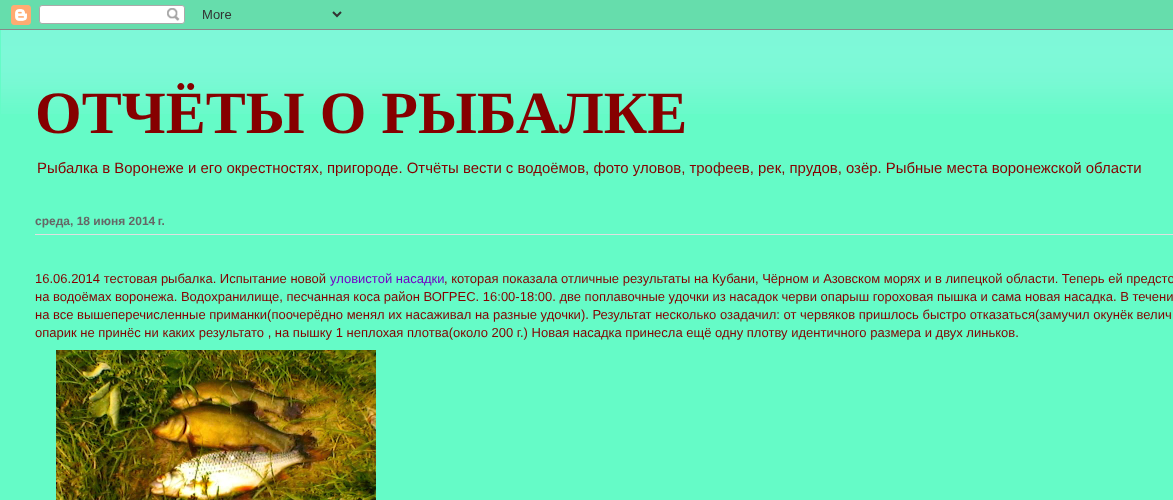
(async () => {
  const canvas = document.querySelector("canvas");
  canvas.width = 1173;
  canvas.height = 500;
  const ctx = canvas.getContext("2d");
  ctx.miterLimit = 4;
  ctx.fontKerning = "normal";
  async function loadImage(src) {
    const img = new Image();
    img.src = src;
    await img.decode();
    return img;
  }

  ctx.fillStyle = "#00c675";
  ctx.fillRect(0, 0, 1173, 500);
  ctx.drawImage(await loadImage("img/1.png"), 0, 0, 1173, 30);
  ctx.fillStyle = "#65fbc7";
  ctx.fillRect(0, 30, 1173, 470);
  ctx.drawImage(await loadImage("img/2.png"), 1, 30, 1172, 84);
  ctx.fillStyle = "#e0e0e0";
  ctx.fillRect(35, 234, 1138, 1);
  ctx.drawImage(await loadImage("img/3.png"), 56, 350, 320, 150);
  ctx.font = "bold 60px Liberation Serif";
  ctx.fillStyle = "#860000";
  ctx.fillText("ОТЧЁТЫ О РЫБАЛКЕ", 35, 133);
  ctx.font = "14.95px Liberation Sans";
  ctx.fillText("Рыбалка в Воронеже и его окрестностях, пригороде. Отчёты вести с водоёмов, фото уловов, трофеев, рек, прудов, озёр. Рыбные места воронежской области", 37, 173);
  ctx.font = "bold 12px Liberation Sans";
  ctx.fillStyle = "#666666";
  ctx.fillText("среда, 18 июня 2014 г.", 35, 225);
  ctx.font = "13px Liberation Sans";
  ctx.fillStyle = "#860000";
  ctx.fillText("16.06.2014 тестовая рыбалка. Испытание новой", 35, 283);
  ctx.fillStyle = "#7400c6";
  ctx.fillText("уловистой насадки", 330, 283);
  ctx.fillStyle = "#860000";
  for (const [text, x, y] of [
    [", которая показала отличные результаты на Кубани, Чёрном и Азовском морях и в липецкой области. Теперь ей предсто", 444, 283],
    ["на водоёмах воронежа. Водохранилище, песчанная коса район ВОГРЕС. 16:00-18:00. две поплавочные удочки из насадок черви опарыш гороховая пышка и сама новая насадка. В течени", 35, 301],
    ["на все вышеперечисленные приманки(поочерёдно менял их насаживал на разные удочки). Результат несколько озадачил: от червяков пришлось быстро отказаться(замучил окунёк велич", 35, 319],
    ["опарик не принёс ни каких результато , на пышку 1 неплохая плотва(около 200 г.) Новая насадка принесла ещё одну плотву идентичного размера и двух линьков.", 35, 337],
  ]) {
    ctx.fillText(text, x, y);
  }
})();
